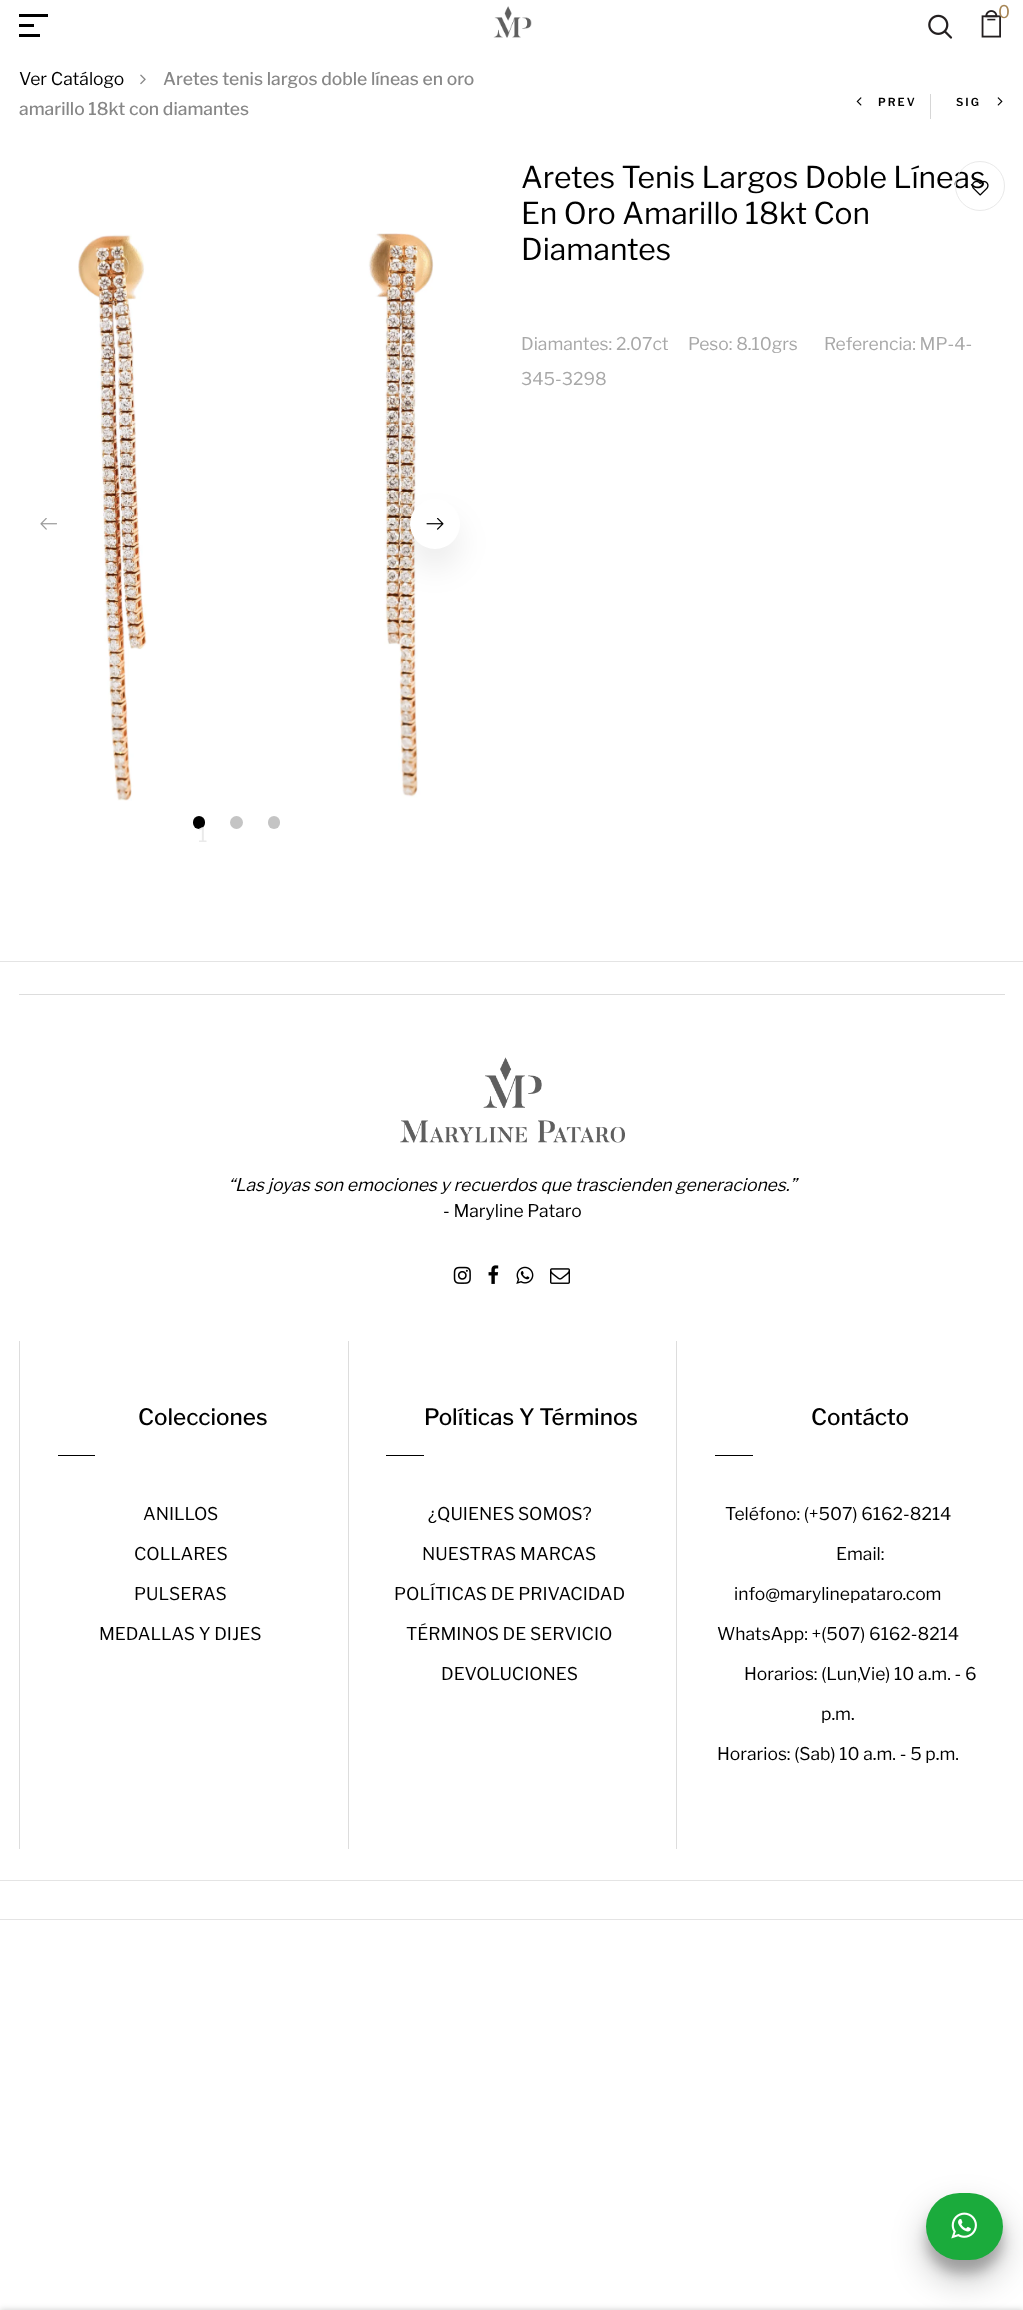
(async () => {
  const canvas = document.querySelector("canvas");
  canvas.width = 1023;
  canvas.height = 2310;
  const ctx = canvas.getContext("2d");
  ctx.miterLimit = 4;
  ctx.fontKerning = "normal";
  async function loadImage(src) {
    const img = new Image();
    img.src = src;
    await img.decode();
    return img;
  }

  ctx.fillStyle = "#ffffff";
  ctx.fillRect(0, 0, 1023, 2310);
  for (const [x, y, w, h, color] of [
    [19, 14, 29, 3, "#000000"],
    [19, 24, 15, 3, "#000000"],
    [19, 34, 21, 3, "#000000"],
  ]) {
    ctx.fillStyle = color;
    ctx.fillRect(x, y, w, h);
  }
  ctx.drawImage(await loadImage("img/1.png"), 493, 6, 39, 32);
  ctx.drawImage(await loadImage("img/2.png"), 981, 10, 20, 28);
  ctx.drawImage(await loadImage("img/3.png"), 928, 14, 25, 25);
  ctx.drawImage(await loadImage("img/4.png"), 140, 74, 6, 11);
  ctx.drawImage(await loadImage("img/5.png"), 856, 97, 6, 9);
  ctx.fillStyle = "#d6d6d6";
  ctx.fillRect(930, 94, 1, 25);
  ctx.drawImage(await loadImage("img/6.png"), 997, 97, 6, 9);
  ctx.drawImage(await loadImage("img/8.png"), 40, 518, 17, 12);
  ctx.drawImage(await loadImage("img/9.png"), 78, 233, 356, 568);
  ctx.fillStyle = "rgba(0, 0, 0, 0.08)";
  ctx.filter = "blur(15.5px)";
  ctx.beginPath();
  ctx.roundRect(410, 518, 50, 50, 25);
  ctx.fill();
  ctx.filter = "none";
  ctx.fillStyle = "#ffffff";
  ctx.beginPath();
  ctx.arc(435, 524, 25, 0, Math.PI * 2);
  ctx.fill();
  ctx.drawImage(await loadImage("img/10.png"), 426, 518, 18, 12);
  ctx.fillStyle = "#c4c4c4";
  ctx.beginPath();
  ctx.arc(236.5, 822.5, 6.5, 0, Math.PI * 2);
  ctx.fill();
  ctx.beginPath();
  ctx.roundRect(268, 816, 12, 13, 6);
  ctx.fill();
  ctx.fillStyle = "#000000";
  ctx.beginPath();
  ctx.roundRect(193, 816, 12, 13, 6);
  ctx.fill();
  ctx.fillStyle = "rgba(0, 0, 0, 0.2)";
  ctx.filter = "blur(3px)";
  ctx.beginPath();
  ctx.rect(0, 2310, 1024, 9);
  ctx.fill();
  ctx.filter = "none";
  for (const [x, y, w, h, color] of [
    [0, 1919, 1023, 1, "#e4e4e4"],
    [0, 961, 1023, 1, "#e4e4e4"],
    [0, 1880, 1023, 1, "#e4e4e4"],
    [19, 994, 986, 1, "#dddddd"],
  ]) {
    ctx.fillStyle = color;
    ctx.fillRect(x, y, w, h);
  }
  ctx.drawImage(await loadImage("img/11.png"), 400, 1057, 225, 86);
  ctx.drawImage(await loadImage("img/12.png"), 453, 1266, 18, 18);
  ctx.drawImage(await loadImage("img/13.png"), 488, 1265, 11, 19);
  ctx.drawImage(await loadImage("img/14.png"), 516, 1266, 18, 18);
  ctx.drawImage(await loadImage("img/15.png"), 550, 1268, 20, 16);
  for (const [x, y, w, h, color] of [
    [19, 1341, 1, 508, "#dddddd"],
    [58, 1455, 37, 1, "#000000"],
    [348, 1341, 1, 508, "#dddddd"],
    [386, 1455, 38, 1, "#000000"],
    [676, 1341, 1, 508, "#dddddd"],
    [715, 1455, 38, 1, "#000000"],
  ]) {
    ctx.fillStyle = color;
    ctx.fillRect(x, y, w, h);
  }
  ctx.fillStyle = "rgba(0, 0, 0, 0.22)";
  ctx.filter = "blur(6px)";
  ctx.beginPath();
  ctx.roundRect(926, 2205, 77, 68, 34);
  ctx.fill();
  ctx.filter = "none";
  ctx.fillStyle = "rgba(0, 0, 0, 0.25)";
  ctx.filter = "blur(17.5px)";
  ctx.beginPath();
  ctx.roundRect(926, 2210, 77, 68, 34);
  ctx.fill();
  ctx.filter = "none";
  ctx.fillStyle = "#1bab3c";
  ctx.beginPath();
  ctx.roundRect(926, 2193, 77, 67, 33.5);
  ctx.fill();
  ctx.drawImage(await loadImage("img/16.png"), 951, 2212, 26, 27);
  ctx.font = "17.5px Libre Franklin";
  ctx.fillStyle = "#a78656";
  ctx.fillText("0", 998, 18);
  ctx.fillStyle = "#000000";
  ctx.fillText("Ver Catálogo", 19, 85);
  ctx.font = "500 17.5px Libre Franklin";
  ctx.fillStyle = "#878787";
  ctx.fillText("Aretes tenis largos doble líneas en oro", 163, 85);
  ctx.fillText("amarillo 18kt con diamantes", 19, 115);
  ctx.letterSpacing = "2px";
  ctx.font = "600 11px Libre Franklin";
  ctx.fillStyle = "#000000";
  ctx.fillText("PREV", 878, 106);
  ctx.fillText("SIG", 956, 106);
  ctx.letterSpacing = "0px";
  ctx.font = "30px Libre Franklin";
  ctx.fillText("Aretes Tenis Largos Doble Líneas", 521, 188);
  ctx.beginPath();
  ctx.arc(980, 186, 24.5, 0, Math.PI * 2);
  ctx.strokeStyle = "#e9e9e9";
  ctx.stroke();
  ctx.drawImage(await loadImage("img/7.png"), 971, 180, 18, 16);
  ctx.fillText("En Oro Amarillo 18kt Con", 521, 224);
  ctx.fillText("Diamantes", 521, 260);
  ctx.font = "17.5px Libre Franklin";
  ctx.fillStyle = "#a8a8a8";
  for (const [text, x, y] of [
    ["Diamantes: 2.07ct", 521, 350],
    ["Peso: 8.10grs       Referencia: MP-4-", 688, 350],
    ["345-3298", 521, 385],
  ]) {
    ctx.fillText(text, x, y);
  }
  ctx.font = "20px Libre Franklin";
  ctx.fillStyle = "#eaeaea";
  ctx.fillText("1", 198, 842);
  ctx.font = "italic 17.5px Libre Franklin";
  ctx.fillStyle = "#000000";
  ctx.fillText("“Las joyas son emociones y recuerdos que trascienden generaciones.”", 228, 1191);
  ctx.font = "17.5px Libre Franklin";
  ctx.fillText("- Maryline Pataro", 443, 1217);
  ctx.font = "500 22.5px Libre Franklin";
  ctx.fillText("Colecciones", 138, 1425);
  ctx.font = "17.5px Libre Franklin";
  for (const [text, x, y] of [
    ["ANILLOS", 143, 1520],
    ["COLLARES", 134, 1560],
    ["PULSERAS", 134, 1600],
    ["MEDALLAS Y DIJES", 99, 1640],
  ]) {
    ctx.fillText(text, x, y);
  }
  ctx.font = "500 22.5px Libre Franklin";
  ctx.fillText("Políticas Y Términos", 424, 1425);
  ctx.font = "17.5px Libre Franklin";
  for (const [text, x, y] of [
    ["¿QUIENES SOMOS?", 428, 1520],
    ["NUESTRAS MARCAS", 422, 1560],
    ["POLÍTICAS DE PRIVACIDAD", 394, 1600],
    ["TÉRMINOS DE SERVICIO", 406, 1640],
    ["DEVOLUCIONES", 441, 1680],
  ]) {
    ctx.fillText(text, x, y);
  }
  ctx.font = "500 22.5px Libre Franklin";
  ctx.fillText("Contácto", 811, 1425);
  ctx.font = "17.5px Libre Franklin";
  for (const [text, x, y] of [
    ["Teléfono: (+507) 6162-8214", 725, 1520],
    ["Email:", 836, 1560],
    ["info@marylinepataro.com", 734, 1600],
    ["WhatsApp: +(507) 6162-8214", 717, 1640],
    ["Horarios: (Lun,Vie) 10 a.m. - 6", 744, 1680],
    ["p.m.", 821, 1720],
    ["Horarios: (Sab) 10 a.m. - 5 p.m.", 717, 1760],
  ]) {
    ctx.fillText(text, x, y);
  }
})();
